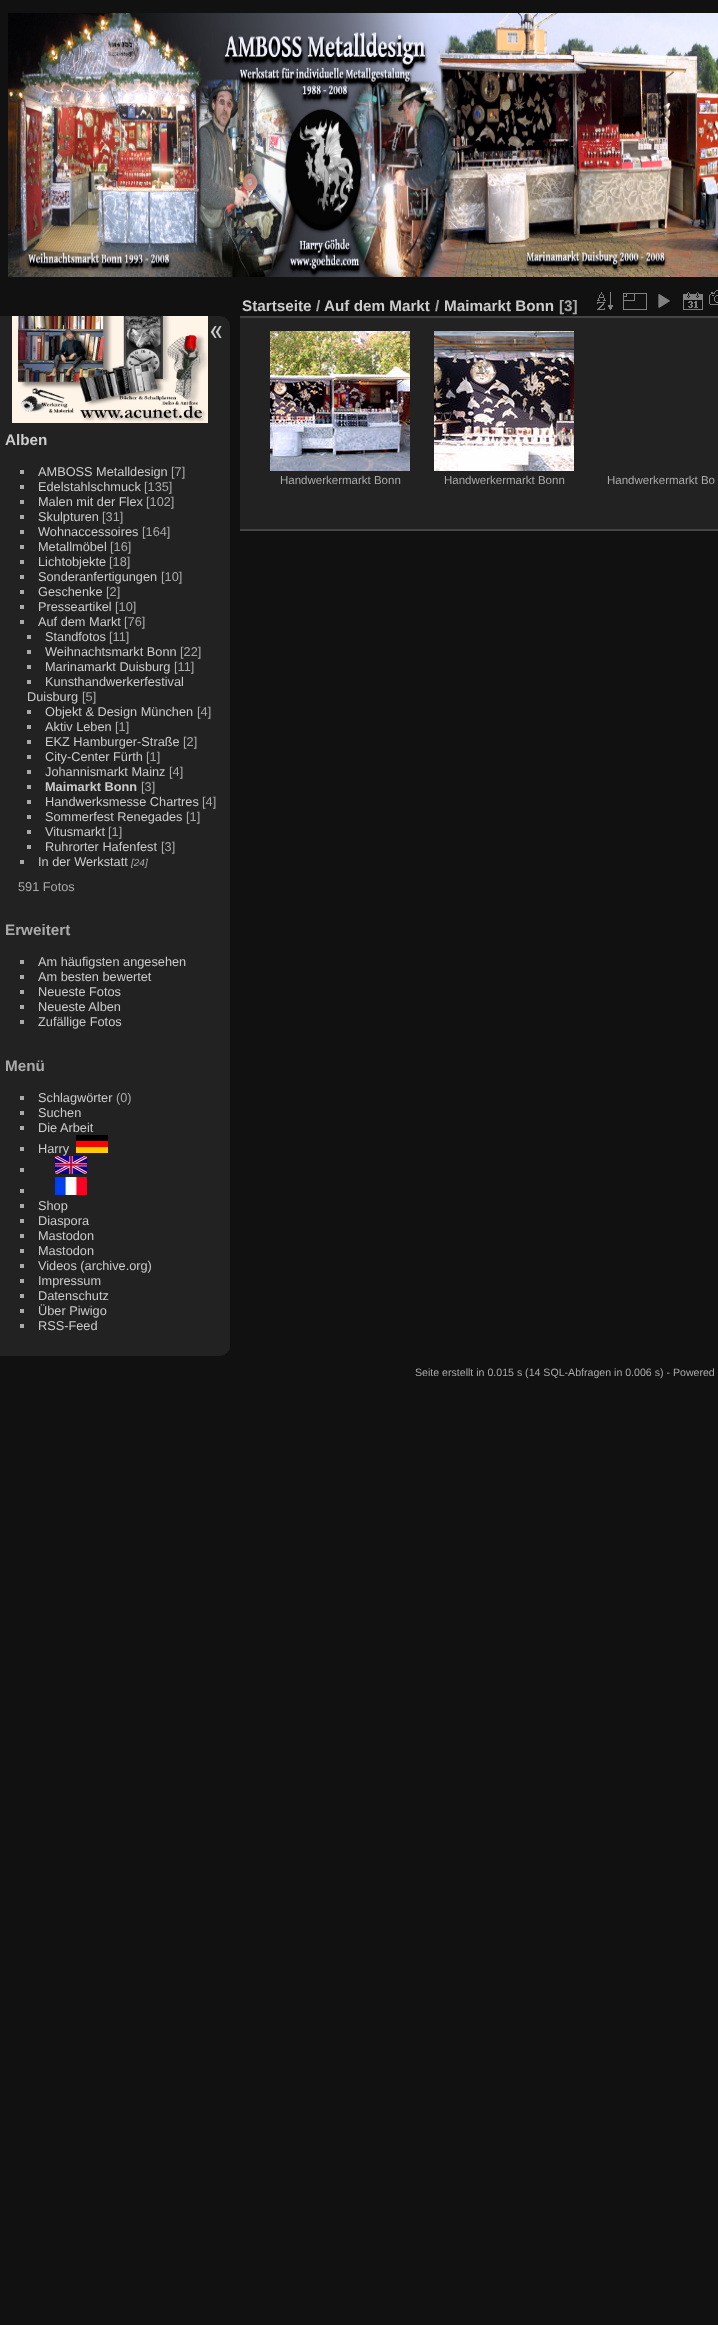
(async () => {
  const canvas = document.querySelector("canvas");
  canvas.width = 718;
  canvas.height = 2325;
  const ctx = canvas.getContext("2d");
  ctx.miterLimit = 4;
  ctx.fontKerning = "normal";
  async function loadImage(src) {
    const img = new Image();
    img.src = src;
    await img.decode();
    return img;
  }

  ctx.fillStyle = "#111111";
  ctx.fillRect(0, 0, 718, 2325);
  ctx.drawImage(await loadImage("img/1.png"), 8, 13, 710, 264);
  ctx.fillStyle = "#222222";
  ctx.beginPath();
  ctx.roundRect(0, 316, 230, 1040, [0, 10, 10, 0]);
  ctx.fill();
  ctx.drawImage(await loadImage("img/2.png"), 210, 326, 12, 12);
  for (const [x, y, w, h, color] of [
    [240, 318, 478, 211, "#222222"],
    [240, 529, 478, 2, "#444444"],
    [240, 316, 478, 2, "#444444"],
  ]) {
    ctx.fillStyle = color;
    ctx.fillRect(x, y, w, h);
  }
  ctx.drawImage(await loadImage("img/3.png"), 597, 292, 16, 18);
  ctx.drawImage(await loadImage("img/4.png"), 623, 293, 24, 17);
  ctx.drawImage(await loadImage("img/5.png"), 658, 294, 12, 14);
  ctx.drawImage(await loadImage("img/6.png"), 683, 292, 20, 18);
  ctx.drawImage(await loadImage("img/7.png"), 709, 290, 9, 15);
  ctx.drawImage(await loadImage("img/8.png"), 270, 331, 140, 140);
  ctx.drawImage(await loadImage("img/9.png"), 434, 331, 140, 140);
  ctx.drawImage(await loadImage("img/10.png"), 12, 316, 196, 107);
  for (const [x, y, w, h, color] of [
    [20, 470, 4, 4, "#aaaaaa"],
    [20, 485, 4, 4, "#aaaaaa"],
    [20, 500, 4, 4, "#aaaaaa"],
    [20, 515, 4, 4, "#aaaaaa"],
    [20, 530, 4, 4, "#aaaaaa"],
    [20, 545, 4, 4, "#aaaaaa"],
    [20, 560, 4, 4, "#aaaaaa"],
    [20, 575, 4, 4, "#aaaaaa"],
    [20, 590, 4, 4, "#aaaaaa"],
    [20, 605, 4, 4, "#aaaaaa"],
    [20, 620, 4, 4, "#aaaaaa"],
    [27, 635, 4, 4, "#aaaaaa"],
    [27, 650, 4, 4, "#aaaaaa"],
    [27, 665, 4, 4, "#aaaaaa"],
    [27, 680, 4, 4, "#aaaaaa"],
    [27, 710, 4, 4, "#aaaaaa"],
    [27, 725, 4, 4, "#aaaaaa"],
    [27, 740, 4, 4, "#aaaaaa"],
    [27, 755, 4, 4, "#aaaaaa"],
    [27, 770, 4, 4, "#aaaaaa"],
    [27, 785, 4, 4, "#aaaaaa"],
    [27, 800, 4, 4, "#aaaaaa"],
    [27, 815, 4, 4, "#aaaaaa"],
    [27, 830, 4, 4, "#aaaaaa"],
    [27, 845, 4, 4, "#aaaaaa"],
    [20, 860, 4, 4, "#aaaaaa"],
    [20, 960, 4, 4, "#aaaaaa"],
    [20, 975, 4, 4, "#aaaaaa"],
    [20, 990, 4, 4, "#aaaaaa"],
    [20, 1005, 4, 4, "#aaaaaa"],
    [20, 1020, 4, 4, "#aaaaaa"],
    [20, 1096, 4, 4, "#aaaaaa"],
    [20, 1111, 4, 4, "#aaaaaa"],
    [20, 1126, 4, 4, "#aaaaaa"],
    [20, 1147, 4, 4, "#aaaaaa"],
  ]) {
    ctx.fillStyle = color;
    ctx.fillRect(x, y, w, h);
  }
  ctx.drawImage(await loadImage("img/11.png"), 76, 1135, 32, 18);
  ctx.fillRect(20, 1168, 4, 4);
  ctx.drawImage(await loadImage("img/12.png"), 55, 1156, 32, 18);
  ctx.fillRect(20, 1189, 4, 4);
  ctx.drawImage(await loadImage("img/13.png"), 55, 1177, 32, 18);
  for (const [x, y, w, h, color] of [
    [20, 1204, 4, 4, "#aaaaaa"],
    [20, 1219, 4, 4, "#aaaaaa"],
    [20, 1234, 4, 4, "#aaaaaa"],
    [20, 1249, 4, 4, "#aaaaaa"],
    [20, 1264, 4, 4, "#aaaaaa"],
    [20, 1279, 4, 4, "#aaaaaa"],
    [20, 1294, 4, 4, "#aaaaaa"],
    [20, 1309, 4, 4, "#aaaaaa"],
    [20, 1324, 4, 4, "#aaaaaa"],
  ]) {
    ctx.fillStyle = color;
    ctx.fillRect(x, y, w, h);
  }
  ctx.font = "bold 15.25px Liberation Sans";
  ctx.fillStyle = "#cccccc";
  ctx.fillText("Startseite", 242, 311);
  ctx.fillStyle = "#aaaaaa";
  ctx.fillText("/", 316, 311);
  ctx.fillStyle = "#cccccc";
  ctx.fillText("Auf dem Markt", 324, 311);
  ctx.fillStyle = "#aaaaaa";
  ctx.fillText("/", 435, 311);
  ctx.fillStyle = "#cccccc";
  ctx.fillText("Maimarkt Bonn", 444, 311);
  ctx.fillStyle = "#aaaaaa";
  ctx.fillText("[3]", 559, 311);
  ctx.font = "11.5px Liberation Sans";
  for (const [text, x, y] of [
    ["Handwerkermarkt Bonn", 280, 484],
    ["Handwerkermarkt Bonn", 444, 484],
    ["Handwerkermarkt Bo", 607, 484],
  ]) {
    ctx.fillText(text, x, y);
  }
  ctx.font = "bold 15.25px Liberation Sans";
  ctx.fillStyle = "#cccccc";
  ctx.fillText("Alben", 5, 445);
  ctx.font = "12.75px Liberation Sans";
  ctx.fillText("AMBOSS Metalldesign", 38, 476);
  ctx.fillStyle = "#aaaaaa";
  ctx.fillText("[7]", 171, 476);
  ctx.fillStyle = "#cccccc";
  ctx.fillText("Edelstahlschmuck", 38, 491);
  ctx.fillStyle = "#aaaaaa";
  ctx.fillText("[135]", 144, 491);
  ctx.fillStyle = "#cccccc";
  ctx.fillText("Malen mit der Flex", 38, 506);
  ctx.fillStyle = "#aaaaaa";
  ctx.fillText("[102]", 146, 506);
  ctx.fillStyle = "#cccccc";
  ctx.fillText("Skulpturen", 38, 521);
  ctx.fillStyle = "#aaaaaa";
  ctx.fillText("[31]", 102, 521);
  ctx.fillStyle = "#cccccc";
  ctx.fillText("Wohnaccessoires", 38, 536);
  ctx.fillStyle = "#aaaaaa";
  ctx.fillText("[164]", 142, 536);
  ctx.fillStyle = "#cccccc";
  ctx.fillText("Metallmöbel", 38, 551);
  ctx.fillStyle = "#aaaaaa";
  ctx.fillText("[16]", 110, 551);
  ctx.fillStyle = "#cccccc";
  ctx.fillText("Lichtobjekte", 38, 566);
  ctx.fillStyle = "#aaaaaa";
  ctx.fillText("[18]", 109, 566);
  ctx.fillStyle = "#cccccc";
  ctx.fillText("Sonderanfertigungen", 38, 581);
  ctx.fillStyle = "#aaaaaa";
  ctx.fillText("[10]", 161, 581);
  ctx.fillStyle = "#cccccc";
  ctx.fillText("Geschenke", 38, 596);
  ctx.fillStyle = "#aaaaaa";
  ctx.fillText("[2]", 106, 596);
  ctx.fillStyle = "#cccccc";
  ctx.fillText("Presseartikel", 38, 611);
  ctx.fillStyle = "#aaaaaa";
  ctx.fillText("[10]", 115, 611);
  ctx.fillStyle = "#cccccc";
  ctx.fillText("Auf dem Markt", 38, 626);
  ctx.fillStyle = "#aaaaaa";
  ctx.fillText("[76]", 124, 626);
  ctx.fillStyle = "#cccccc";
  ctx.fillText("Standfotos", 45, 641);
  ctx.fillStyle = "#aaaaaa";
  ctx.fillText("[11]", 109, 641);
  ctx.fillStyle = "#cccccc";
  ctx.fillText("Weihnachtsmarkt Bonn", 45, 656);
  ctx.fillStyle = "#aaaaaa";
  ctx.fillText("[22]", 180, 656);
  ctx.fillStyle = "#cccccc";
  ctx.fillText("Marinamarkt Duisburg", 45, 671);
  ctx.fillStyle = "#aaaaaa";
  ctx.fillText("[11]", 174, 671);
  ctx.fillStyle = "#cccccc";
  ctx.fillText("Kunsthandwerkerfestival", 45, 686);
  ctx.fillText("Duisburg", 27, 701);
  ctx.fillStyle = "#aaaaaa";
  ctx.fillText("[5]", 82, 701);
  ctx.fillStyle = "#cccccc";
  ctx.fillText("Objekt & Design München", 45, 716);
  ctx.fillStyle = "#aaaaaa";
  ctx.fillText("[4]", 197, 716);
  ctx.fillStyle = "#cccccc";
  ctx.fillText("Aktiv Leben", 45, 731);
  ctx.fillStyle = "#aaaaaa";
  ctx.fillText("[1]", 115, 731);
  ctx.fillStyle = "#cccccc";
  ctx.fillText("EKZ Hamburger-Straße", 45, 746);
  ctx.fillStyle = "#aaaaaa";
  ctx.fillText("[2]", 183, 746);
  ctx.fillStyle = "#cccccc";
  ctx.fillText("City-Center Fürth", 45, 761);
  ctx.fillStyle = "#aaaaaa";
  ctx.fillText("[1]", 146, 761);
  ctx.fillStyle = "#cccccc";
  ctx.fillText("Johannismarkt Mainz", 45, 776);
  ctx.fillStyle = "#aaaaaa";
  ctx.fillText("[4]", 169, 776);
  ctx.font = "bold 12.75px Liberation Sans";
  ctx.fillStyle = "#cccccc";
  ctx.fillText("Maimarkt Bonn", 45, 791);
  ctx.font = "12.75px Liberation Sans";
  ctx.fillStyle = "#aaaaaa";
  ctx.fillText("[3]", 141, 791);
  ctx.fillStyle = "#cccccc";
  ctx.fillText("Handwerksmesse Chartres", 45, 806);
  ctx.fillStyle = "#aaaaaa";
  ctx.fillText("[4]", 202, 806);
  ctx.fillStyle = "#cccccc";
  ctx.fillText("Sommerfest Renegades", 45, 821);
  ctx.fillStyle = "#aaaaaa";
  ctx.fillText("[1]", 186, 821);
  ctx.fillStyle = "#cccccc";
  ctx.fillText("Vitusmarkt", 45, 836);
  ctx.fillStyle = "#aaaaaa";
  ctx.fillText("[1]", 108, 836);
  ctx.fillStyle = "#cccccc";
  ctx.fillText("Ruhrorter Hafenfest", 45, 851);
  ctx.fillStyle = "#aaaaaa";
  ctx.fillText("[3]", 161, 851);
  ctx.fillStyle = "#cccccc";
  ctx.fillText("In der Werkstatt", 38, 866);
  ctx.font = "italic 10px Liberation Sans";
  ctx.fillStyle = "#aaaaaa";
  ctx.fillText("[24]", 131, 866);
  ctx.font = "12.75px Liberation Sans";
  ctx.fillText("591 Fotos", 18, 891);
  ctx.font = "bold 15.25px Liberation Sans";
  ctx.fillText("Erweitert", 5, 935);
  ctx.font = "12.75px Liberation Sans";
  ctx.fillStyle = "#cccccc";
  for (const [text, x, y] of [
    ["Am häufigsten angesehen", 38, 966],
    ["Am besten bewertet", 38, 981],
    ["Neueste Fotos", 38, 996],
    ["Neueste Alben", 38, 1011],
    ["Zufällige Fotos", 38, 1026],
  ]) {
    ctx.fillText(text, x, y);
  }
  ctx.font = "bold 15.25px Liberation Sans";
  ctx.fillStyle = "#aaaaaa";
  ctx.fillText("Menü", 5, 1071);
  ctx.font = "12.75px Liberation Sans";
  ctx.fillStyle = "#cccccc";
  ctx.fillText("Schlagwörter", 38, 1102);
  ctx.fillStyle = "#aaaaaa";
  ctx.fillText("(0)", 116, 1102);
  ctx.fillStyle = "#cccccc";
  for (const [text, x, y] of [
    ["Suchen", 38, 1117],
    ["Die Arbeit", 38, 1132],
    ["Harry", 38, 1153],
    ["Shop", 38, 1210],
    ["Diaspora", 38, 1225],
    ["Mastodon", 38, 1240],
    ["Mastodon", 38, 1255],
    ["Videos (archive.org)", 38, 1270],
    ["Impressum", 38, 1285],
    ["Datenschutz", 38, 1300],
    ["Über Piwigo", 38, 1315],
    ["RSS-Feed", 38, 1330],
  ]) {
    ctx.fillText(text, x, y);
  }
  ctx.font = "10.6px Liberation Sans";
  ctx.fillStyle = "#aaaaaa";
  ctx.fillText("Seite erstellt in 0.015 s (14 SQL-Abfragen in 0.006 s) - Powered", 415, 1376);
})();
